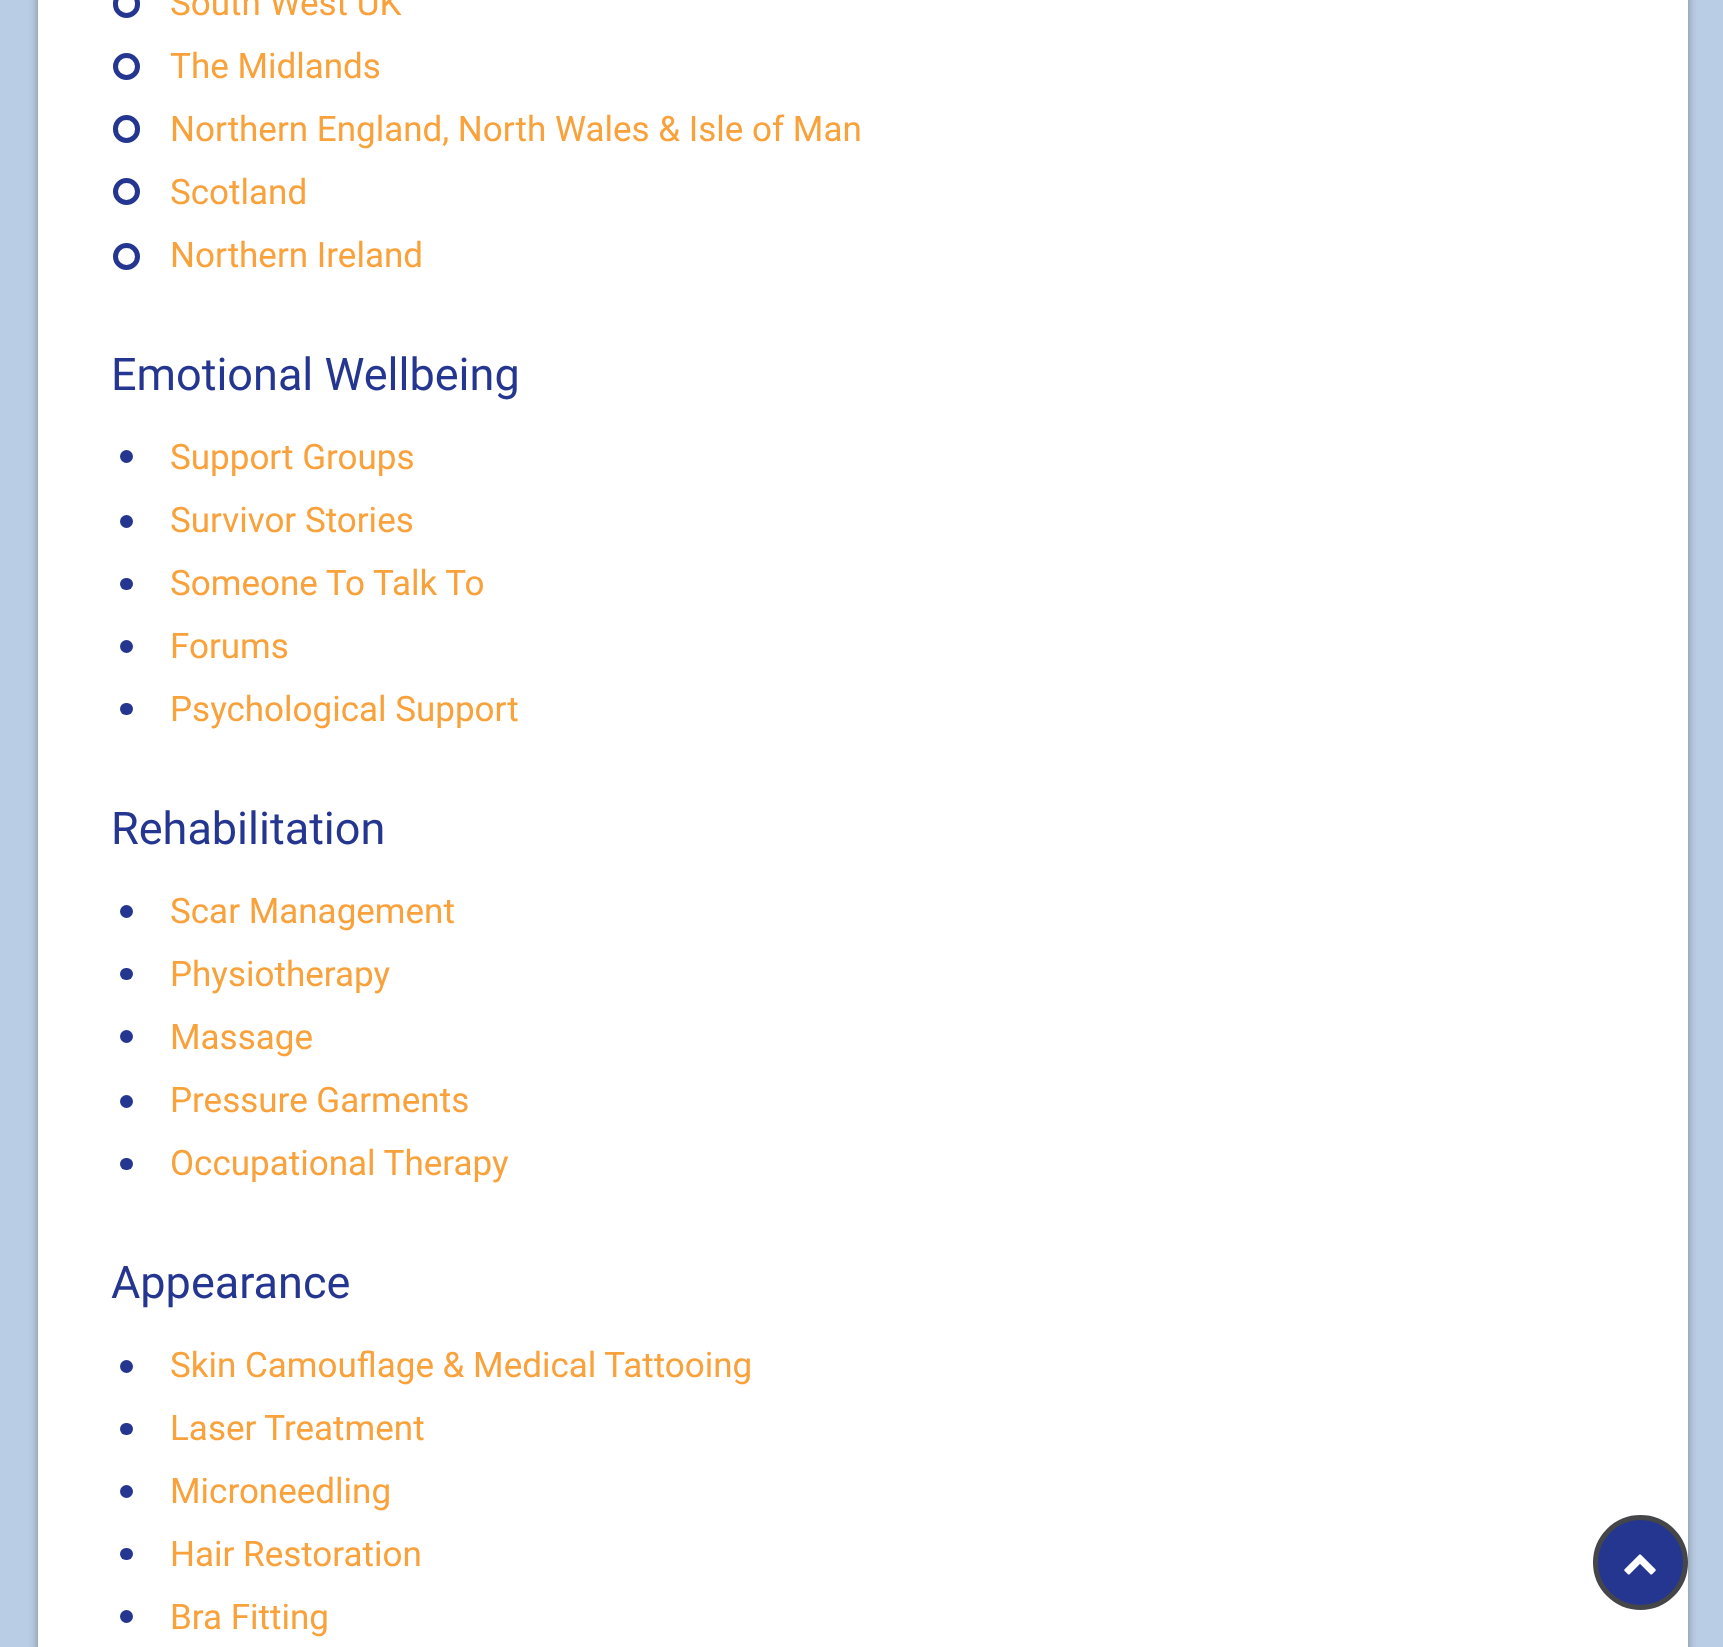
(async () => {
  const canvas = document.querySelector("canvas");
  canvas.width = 1723;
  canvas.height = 1647;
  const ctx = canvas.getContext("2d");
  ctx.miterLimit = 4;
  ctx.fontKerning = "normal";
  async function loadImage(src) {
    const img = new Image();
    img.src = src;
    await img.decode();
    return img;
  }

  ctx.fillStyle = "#b9cde5";
  ctx.fillRect(0, 0, 1723, 1647);
  ctx.fillStyle = "rgba(34, 25, 25, 0.4)";
  ctx.filter = "blur(4px)";
  ctx.beginPath();
  ctx.rect(38, -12, 1650, 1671);
  ctx.fill();
  ctx.filter = "none";
  ctx.fillStyle = "#ffffff";
  ctx.fillRect(38, 0, 1650, 1647);
  ctx.beginPath();
  ctx.roundRect(115.5, -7.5, 22, 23, 11);
  ctx.strokeStyle = "#253690";
  ctx.lineWidth = 5;
  ctx.stroke();
  ctx.beginPath();
  ctx.arc(126.5, 66.5, 11, 0, Math.PI * 2);
  ctx.stroke();
  ctx.beginPath();
  ctx.roundRect(115.5, 117.5, 22, 23, 11);
  ctx.stroke();
  ctx.beginPath();
  ctx.arc(126.5, 191.5, 11, 0, Math.PI * 2);
  ctx.stroke();
  ctx.beginPath();
  ctx.arc(126.5, 256.5, 11, 0, Math.PI * 2);
  ctx.stroke();
  ctx.fillStyle = "#253690";
  ctx.beginPath();
  ctx.arc(126.5, 456.5, 6.5, 0, Math.PI * 2);
  ctx.fill();
  ctx.beginPath();
  ctx.arc(126.5, 521.5, 6.5, 0, Math.PI * 2);
  ctx.fill();
  ctx.beginPath();
  ctx.roundRect(120, 578, 13, 12, 6);
  ctx.fill();
  ctx.beginPath();
  ctx.arc(126.5, 646.5, 6.5, 0, Math.PI * 2);
  ctx.fill();
  ctx.beginPath();
  ctx.roundRect(120, 703, 13, 12, 6);
  ctx.fill();
  ctx.beginPath();
  ctx.arc(126.5, 911.5, 6.5, 0, Math.PI * 2);
  ctx.fill();
  ctx.beginPath();
  ctx.roundRect(120, 968, 13, 12, 6);
  ctx.fill();
  ctx.beginPath();
  ctx.arc(126.5, 1036.5, 6.5, 0, Math.PI * 2);
  ctx.fill();
  ctx.beginPath();
  ctx.arc(126.5, 1101.5, 6.5, 0, Math.PI * 2);
  ctx.fill();
  ctx.beginPath();
  ctx.roundRect(120, 1158, 13, 12, 6);
  ctx.fill();
  ctx.beginPath();
  ctx.arc(126.5, 1366.5, 6.5, 0, Math.PI * 2);
  ctx.fill();
  ctx.beginPath();
  ctx.roundRect(120, 1423, 13, 12, 6);
  ctx.fill();
  ctx.beginPath();
  ctx.arc(126.5, 1491.5, 6.5, 0, Math.PI * 2);
  ctx.fill();
  ctx.beginPath();
  ctx.roundRect(120, 1548, 13, 12, 6);
  ctx.fill();
  ctx.beginPath();
  ctx.arc(126.5, 1616.5, 6.5, 0, Math.PI * 2);
  ctx.fill();
  ctx.beginPath();
  ctx.arc(1640.5, 1562.5, 45, 0, Math.PI * 2);
  ctx.fill();
  ctx.strokeStyle = "#444649";
  ctx.stroke();
  ctx.drawImage(await loadImage("img/1.png"), 1624, 1554, 32, 21);
  ctx.font = "35px Roboto";
  ctx.fillStyle = "#f9a13a";
  for (const [text, x, y] of [
    ["South West UK", 170, 15],
    ["The Midlands", 170, 78],
    ["Northern England, North Wales & Isle of Man", 170, 141],
    ["Scotland", 170, 204],
    ["Northern Ireland", 170, 267],
  ]) {
    ctx.fillText(text, x, y);
  }
  ctx.font = "45px Roboto";
  ctx.fillStyle = "#253690";
  ctx.fillText("Emotional Wellbeing", 111, 390);
  ctx.font = "35px Roboto";
  ctx.fillStyle = "#f9a13a";
  for (const [text, x, y] of [
    ["Support Groups", 170, 469],
    ["Survivor Stories", 170, 532],
    ["Someone To Talk To", 170, 595],
    ["Forums", 170, 658],
    ["Psychological Support", 170, 721],
  ]) {
    ctx.fillText(text, x, y);
  }
  ctx.font = "45px Roboto";
  ctx.fillStyle = "#253690";
  ctx.fillText("Rehabilitation", 111, 844);
  ctx.font = "35px Roboto";
  ctx.fillStyle = "#f9a13a";
  for (const [text, x, y] of [
    ["Scar Management", 170, 923],
    ["Physiotherapy", 170, 986],
    ["Massage", 170, 1049],
    ["Pressure Garments", 170, 1112],
    ["Occupational Therapy", 170, 1175],
  ]) {
    ctx.fillText(text, x, y);
  }
  ctx.font = "45px Roboto";
  ctx.fillStyle = "#253690";
  ctx.fillText("Appearance", 111, 1298);
  ctx.font = "35px Roboto";
  ctx.fillStyle = "#f9a13a";
  for (const [text, x, y] of [
    ["Skin Camouflage & Medical Tattooing", 170, 1377],
    ["Laser Treatment", 170, 1440],
    ["Microneedling", 170, 1503],
    ["Hair Restoration", 170, 1566],
    ["Bra Fitting", 170, 1629],
  ]) {
    ctx.fillText(text, x, y);
  }
})();
